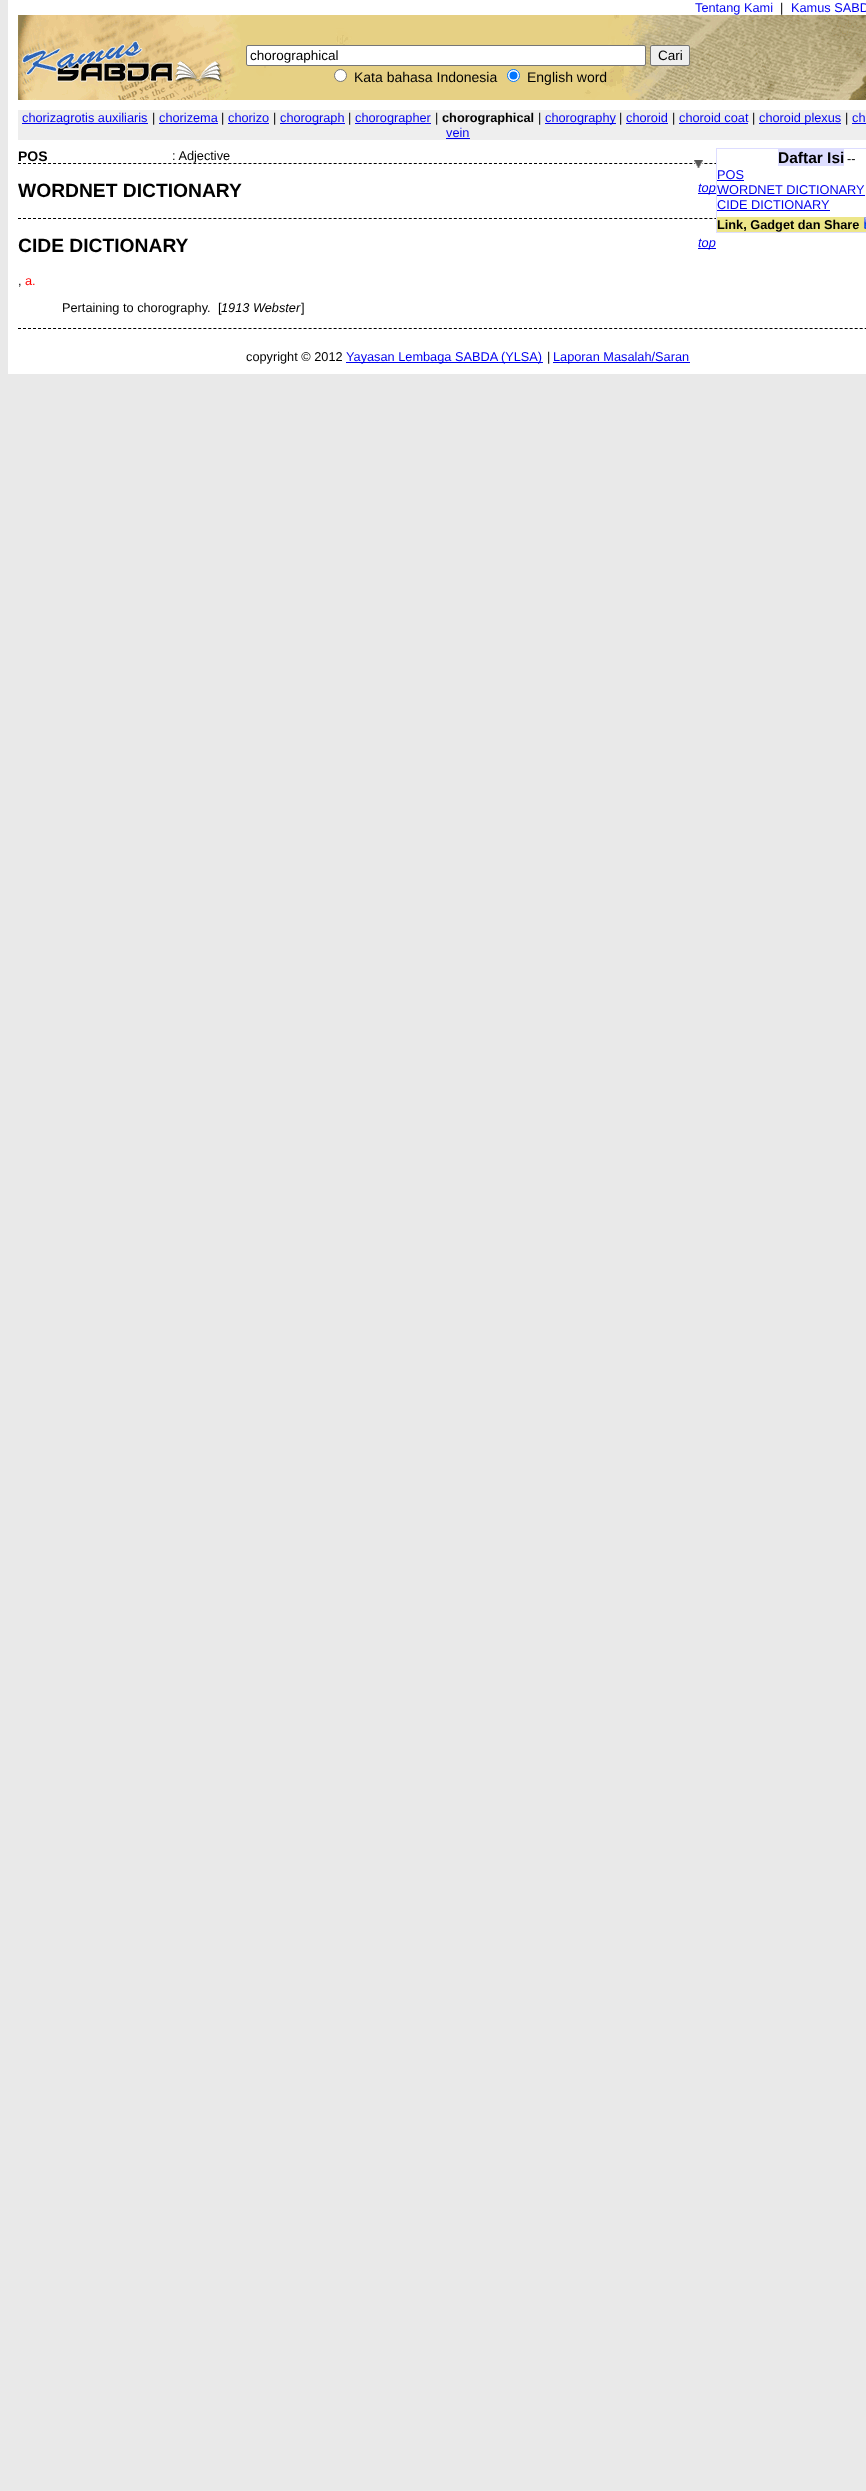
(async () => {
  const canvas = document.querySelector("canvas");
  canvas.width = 866;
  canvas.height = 2491;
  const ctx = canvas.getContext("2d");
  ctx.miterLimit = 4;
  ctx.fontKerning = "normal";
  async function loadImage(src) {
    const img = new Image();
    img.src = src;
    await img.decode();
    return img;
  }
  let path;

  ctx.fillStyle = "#e9e9e9";
  ctx.fillRect(0, 0, 866, 2491);
  ctx.fillStyle = "#ffffff";
  ctx.fillRect(8, 0, 858, 374);
  ctx.drawImage(await loadImage("img/1.png"), 18, 15, 848, 85);
  ctx.beginPath();
  ctx.roundRect(246.5, 45.5, 399, 20, 1.5);
  ctx.fill();
  ctx.strokeStyle = "#767676";
  ctx.stroke();
  ctx.fillStyle = "#efefef";
  ctx.beginPath();
  ctx.roundRect(650.5, 45.5, 39, 20, 1.5);
  ctx.fill();
  ctx.stroke();
  ctx.fillStyle = "#ffffff";
  ctx.beginPath();
  ctx.arc(340.5, 75.5, 6, 0, Math.PI * 2);
  ctx.fill();
  ctx.stroke();
  ctx.beginPath();
  ctx.arc(513.5, 75.5, 6, 0, Math.PI * 2);
  ctx.fill();
  ctx.strokeStyle = "#0075ff";
  ctx.stroke();
  ctx.fillStyle = "#0075ff";
  ctx.beginPath();
  ctx.arc(513.5, 75.5, 4, 0, Math.PI * 2);
  ctx.fill();
  for (const [x, y, w, h, color] of [
    [18, 110, 848, 30, "#eeeeee"],
    [22, 123, 126, 1, "#0000ee"],
    [159, 123, 59, 1, "#0000ee"],
    [228, 123, 41, 1, "#0000ee"],
    [280, 123, 65, 1, "#0000ee"],
    [355, 123, 76, 1, "#0000ee"],
    [545, 123, 71, 1, "#0000ee"],
    [626, 123, 42, 1, "#0000ee"],
    [679, 123, 69, 1, "#0000ee"],
    [759, 123, 82, 1, "#0000ee"],
    [852, 123, 14, 1, "#0000ee"],
    [446, 138, 24, 1, "#0000ee"],
  ]) {
    ctx.fillStyle = color;
    ctx.fillRect(x, y, w, h);
  }
  path = new Path2D("M18 163.5H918");
  ctx.strokeStyle = "#000000";
  ctx.setLineDash([3, 2.01]);
  ctx.stroke(path);
  path = new Path2D("M18 218.5H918");
  ctx.stroke(path);
  ctx.fillRect(698, 193, 18, 1);
  path = new Path2D("M18 328.5H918");
  ctx.stroke(path);
  ctx.fillRect(698, 248, 18, 1);
  ctx.fillStyle = "#ffffff";
  ctx.fillRect(717, 163, 149, 1);
  ctx.strokeStyle = "#ddddff";
  ctx.setLineDash([]);
  ctx.strokeRect(716.5, 148.5, 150, 84);
  for (const [x, y, w, h, color] of [
    [778, 149, 66, 17, "#ddddff"],
    [717, 180, 27, 1, "#0000ee"],
    [717, 195, 148, 1, "#0000ee"],
    [717, 210, 113, 1, "#0000ee"],
    [717, 217, 149, 15, "#ede689"],
  ]) {
    ctx.fillStyle = color;
    ctx.fillRect(x, y, w, h);
  }
  ctx.drawImage(await loadImage("img/2.png"), 864, 217, 2, 12);
  ctx.drawImage(await loadImage("img/3.png"), 694, 160, 9, 8);
  ctx.fillStyle = "#0000ee";
  ctx.fillRect(346, 362, 197, 1);
  ctx.fillRect(553, 362, 137, 1);
  ctx.font = "12.75px Liberation Sans";
  ctx.fillText("Tentang Kami", 695, 12);
  ctx.fillStyle = "#000000";
  ctx.fillText("|", 780, 12);
  ctx.fillStyle = "#0000ee";
  ctx.fillText("Kamus SABD", 791, 12);
  ctx.font = "13.5px Liberation Sans";
  ctx.fillStyle = "#000000";
  ctx.fillText("chorographical", 250, 60);
  ctx.fillText("Cari", 658, 60);
  ctx.font = "14px Liberation Sans";
  ctx.fillText("Kata bahasa Indonesia", 354, 82);
  ctx.fillText("English word", 527, 82);
  ctx.font = "12.75px Liberation Sans";
  ctx.fillStyle = "#0000ee";
  ctx.fillText("chorizagrotis auxiliaris", 22, 122);
  ctx.fillStyle = "#000000";
  ctx.fillText("|", 152, 122);
  ctx.fillStyle = "#0000ee";
  ctx.fillText("chorizema", 159, 122);
  ctx.fillStyle = "#000000";
  ctx.fillText("|", 221, 122);
  ctx.fillStyle = "#0000ee";
  ctx.fillText("chorizo", 228, 122);
  ctx.fillStyle = "#000000";
  ctx.fillText("|", 273, 122);
  ctx.fillStyle = "#0000ee";
  ctx.fillText("chorograph", 280, 122);
  ctx.fillStyle = "#000000";
  ctx.fillText("|", 348, 122);
  ctx.fillStyle = "#0000ee";
  ctx.fillText("chorographer", 355, 122);
  ctx.fillStyle = "#000000";
  ctx.fillText("|", 435, 122);
  ctx.font = "bold 12.75px Liberation Sans";
  ctx.fillText("chorographical", 442, 122);
  ctx.font = "12.75px Liberation Sans";
  ctx.fillText("|", 538, 122);
  ctx.fillStyle = "#0000ee";
  ctx.fillText("chorography", 545, 122);
  ctx.fillStyle = "#000000";
  ctx.fillText("|", 619, 122);
  ctx.fillStyle = "#0000ee";
  ctx.fillText("choroid", 626, 122);
  ctx.fillStyle = "#000000";
  ctx.fillText("|", 672, 122);
  ctx.fillStyle = "#0000ee";
  ctx.fillText("choroid coat", 679, 122);
  ctx.fillStyle = "#000000";
  ctx.fillText("|", 752, 122);
  ctx.fillStyle = "#0000ee";
  ctx.fillText("choroid plexus", 759, 122);
  ctx.fillStyle = "#000000";
  ctx.fillText("|", 845, 122);
  ctx.fillStyle = "#0000ee";
  ctx.fillText("ch", 852, 122);
  ctx.fillText("vein", 446, 137);
  ctx.font = "bold 14px Liberation Sans";
  ctx.fillStyle = "#000000";
  ctx.fillText("POS", 18, 161);
  ctx.font = "12.75px Liberation Sans";
  ctx.fillText(": Adjective", 172, 160);
  ctx.font = "bold 19.25px Liberation Sans";
  ctx.fillText("WORDNET DICTIONARY", 18, 197);
  ctx.font = "italic 12.75px Liberation Sans";
  ctx.fillStyle = "#0000ee";
  ctx.fillText("top", 698, 192);
  ctx.font = "bold 19.25px Liberation Sans";
  ctx.fillStyle = "#000000";
  ctx.fillText("CIDE DICTIONARY", 18, 252);
  ctx.font = "italic 12.75px Liberation Sans";
  ctx.fillStyle = "#0000ee";
  ctx.fillText("top", 698, 247);
  ctx.font = "12.75px Liberation Sans";
  ctx.fillStyle = "#000000";
  ctx.fillText(",", 18, 285);
  ctx.fillStyle = "#ff0000";
  ctx.fillText("a.", 25, 285);
  ctx.fillStyle = "#000000";
  ctx.fillText("Pertaining to chorography.", 62, 312);
  ctx.fillText("[", 218, 312);
  ctx.font = "italic 12.75px Liberation Sans";
  ctx.fillText("1913 Webster", 221, 312);
  ctx.font = "12.75px Liberation Sans";
  ctx.fillText("]", 301, 312);
  ctx.font = "bold 15.5px Liberation Sans";
  ctx.fillText("Daftar Isi", 778, 163);
  ctx.font = "12.75px Liberation Sans";
  ctx.fillText("--", 847, 163);
  ctx.fillStyle = "#0000ee";
  for (const [text, x, y] of [
    ["POS", 717, 179],
    ["WORDNET DICTIONARY", 717, 194],
    ["CIDE DICTIONARY", 717, 209],
  ]) {
    ctx.fillText(text, x, y);
  }
  ctx.font = "bold 12.75px Liberation Sans";
  ctx.fillStyle = "#000000";
  ctx.fillText("Link, Gadget dan Share", 717, 229);
  ctx.font = "12.75px Liberation Sans";
  ctx.fillText("copyright © 2012", 246, 361);
  ctx.fillStyle = "#0000ee";
  ctx.fillText("Yayasan Lembaga SABDA (YLSA)", 346, 361);
  ctx.fillStyle = "#000000";
  ctx.fillText("|", 547, 361);
  ctx.fillStyle = "#0000ee";
  ctx.fillText("Laporan Masalah/Saran", 553, 361);
})();
